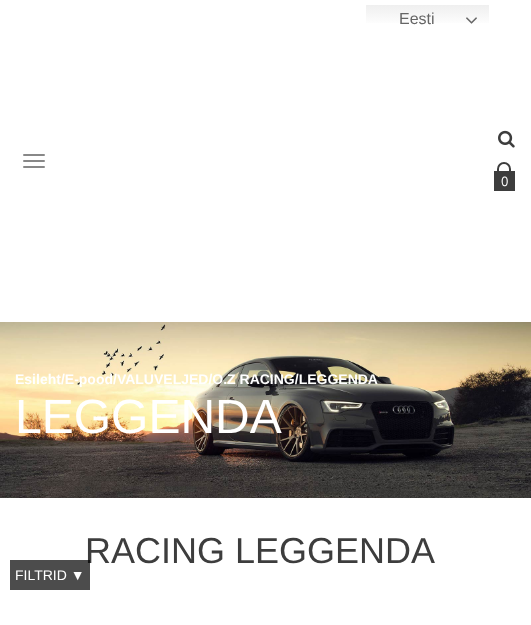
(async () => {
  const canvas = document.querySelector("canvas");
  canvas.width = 531;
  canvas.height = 625;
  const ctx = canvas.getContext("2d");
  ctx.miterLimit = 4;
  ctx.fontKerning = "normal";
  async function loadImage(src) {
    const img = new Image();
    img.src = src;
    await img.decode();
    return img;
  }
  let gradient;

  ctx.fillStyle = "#ffffff";
  ctx.fillRect(0, 0, 531, 625);
  gradient = ctx.createLinearGradient(428, 5, 428, 35);
  gradient.addColorStop(0, "#efefef");
  gradient.addColorStop(0.7, "#ffffff");
  ctx.fillStyle = gradient;
  ctx.fillRect(366, 5, 123, 18);
  ctx.drawImage(await loadImage("img/1.png"), 466, 17, 11, 7);
  ctx.fillStyle = "#888888";
  ctx.beginPath();
  ctx.roundRect(23, 154, 22, 2, 1);
  ctx.fill();
  ctx.beginPath();
  ctx.roundRect(23, 160, 22, 2, 1);
  ctx.fill();
  ctx.beginPath();
  ctx.roundRect(23, 166, 22, 2, 1);
  ctx.fill();
  ctx.drawImage(await loadImage("img/2.png"), 498, 130, 17, 18);
  ctx.beginPath();
  ctx.roundRect(498, 163, 12, 24, 6);
  ctx.strokeStyle = "#3d3d3d";
  ctx.lineWidth = 2;
  ctx.stroke();
  ctx.strokeRect(495, 172, 19, 18);
  ctx.fillStyle = "#3d3d3d";
  ctx.fillRect(496, 173, 17, 16);
  ctx.drawImage(await loadImage("img/3.png"), 0, 322, 531, 176);
  ctx.font = "16px Liberation Sans";
  ctx.fillStyle = "#666666";
  ctx.fillText("Eesti", 399, 24);
  ctx.font = "13px Open Sans";
  ctx.fillStyle = "#ffffff";
  ctx.fillText("0", 501, 186);
  ctx.font = "bold 14px Liberation Sans";
  ctx.fillText("Esileht/E-pood/VALUVELJED/O.Z RACING/LEGGENDA", 15, 384);
  ctx.font = "48px Liberation Sans";
  ctx.fillText("LEGGENDA", 15, 433);
  ctx.font = "36px Liberation Sans";
  ctx.fillStyle = "#3d3d3d";
  ctx.fillText("RACING LEGGENDA", 85, 563);
  ctx.fillStyle = "rgba(0, 0, 0, 0.7)";
  ctx.fillRect(10, 560, 80, 30);
  ctx.font = "14px Liberation Sans";
  ctx.fillStyle = "#ffffff";
  ctx.fillText("FILTRID ▼", 15, 580);
})();
